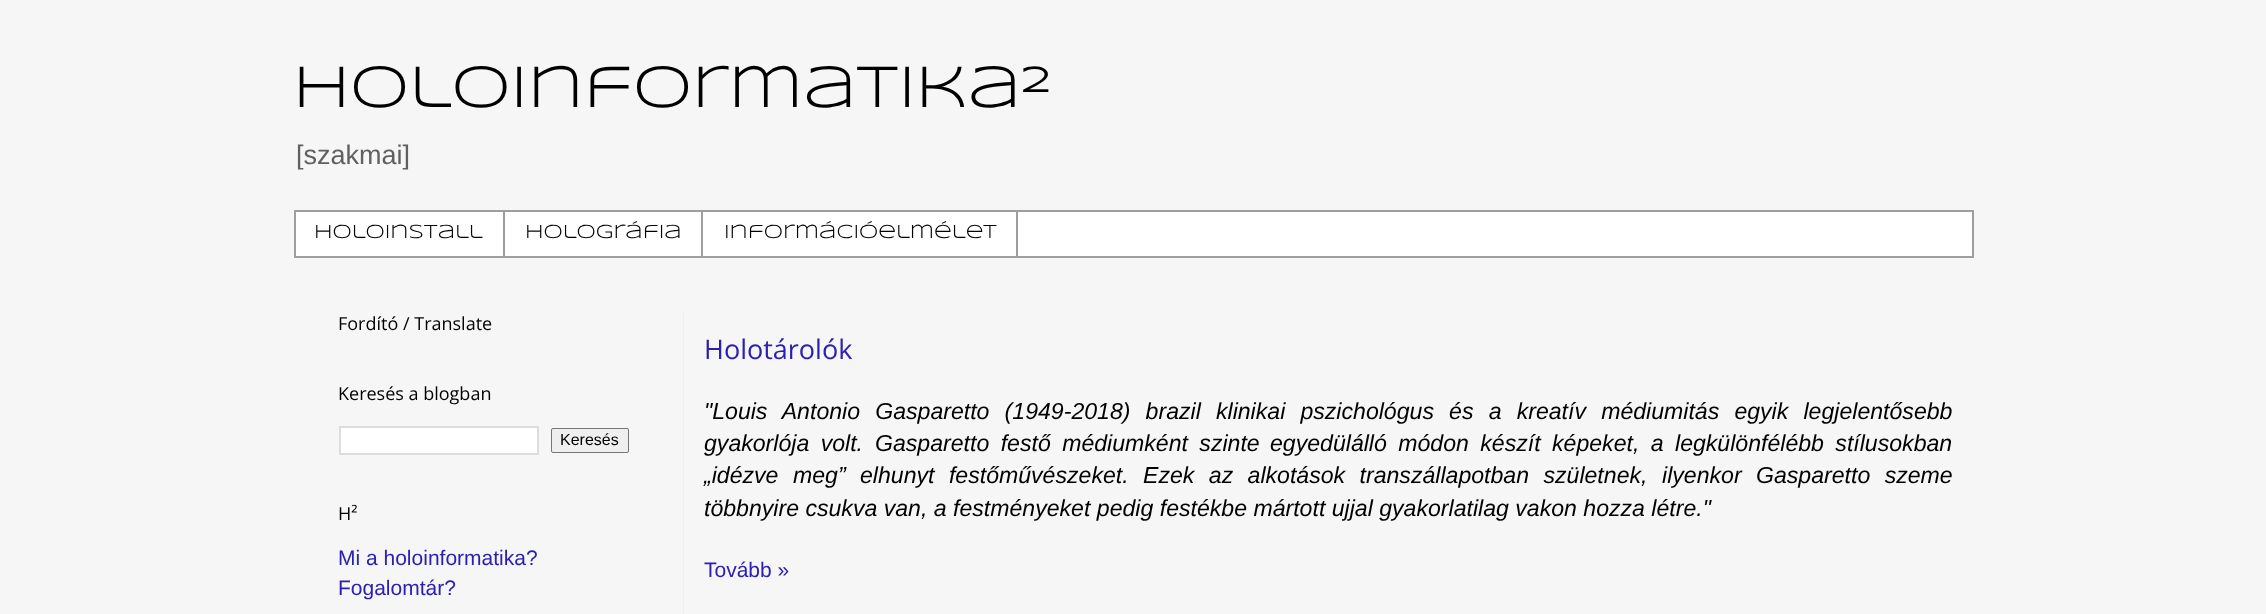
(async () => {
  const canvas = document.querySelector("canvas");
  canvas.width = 2266;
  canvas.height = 614;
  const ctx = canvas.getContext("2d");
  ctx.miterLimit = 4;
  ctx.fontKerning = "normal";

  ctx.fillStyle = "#f6f6f6";
  ctx.fillRect(0, 0, 2266, 614);
  ctx.fillStyle = "#ffffff";
  ctx.beginPath();
  ctx.rect(295, 211, 1678, 46);
  ctx.fill();
  ctx.strokeStyle = "#9e9e9e";
  ctx.lineWidth = 2;
  ctx.stroke();
  for (const [x, y, w, h, color] of [
    [503, 212, 2, 45, "#9e9e9e"],
    [701, 212, 2, 45, "#9e9e9e"],
    [1016, 212, 2, 45, "#9e9e9e"],
    [683, 311, 1, 303, "#eeeeee"],
  ]) {
    ctx.fillStyle = color;
    ctx.fillRect(x, y, w, h);
  }
  ctx.fillStyle = "#ffffff";
  ctx.beginPath();
  ctx.rect(340, 427, 198, 27);
  ctx.fill();
  ctx.strokeStyle = "#dddddd";
  ctx.stroke();
  ctx.fillStyle = "#efefef";
  ctx.beginPath();
  ctx.roundRect(551.5, 428.5, 77, 24, 1.5);
  ctx.fill();
  ctx.strokeStyle = "#767676";
  ctx.lineWidth = 1;
  ctx.stroke();
  ctx.font = "60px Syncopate";
  ctx.fillStyle = "#000000";
  ctx.fillText("Holoinformatika²", 293, 107);
  ctx.font = "27px Liberation Sans";
  ctx.fillStyle = "#606060";
  ctx.fillText("[szakmai]", 296, 164);
  ctx.font = "19.5px Syncopate";
  ctx.fillStyle = "#000000";
  for (const [text, x, y] of [
    ["HoloInstall", 314, 238],
    ["Holográfia", 525, 238],
    ["Információelmélet", 724, 238],
  ]) {
    ctx.fillText(text, x, y);
  }
  ctx.font = "18px Open Sans";
  ctx.fillText("Fordító / Translate", 338, 330);
  ctx.fillText("Keresés a blogban", 338, 400);
  ctx.font = "16px Liberation Sans";
  ctx.fillText("Keresés", 560, 445);
  ctx.font = "18px Open Sans";
  ctx.fillText("H²", 338, 520);
  ctx.font = "21px Liberation Sans";
  ctx.fillStyle = "#2c20b3";
  ctx.fillText("Mi a holoinformatika?", 338, 565);
  ctx.fillText("Fogalomtár?", 338, 595);
  ctx.font = "27px Open Sans";
  ctx.fillText("Holotárolók", 704, 359);
  ctx.wordSpacing = "8.75px";
  ctx.font = "italic 23.1px Liberation Sans";
  ctx.fillStyle = "#000000";
  ctx.fillText("\"Louis Antonio Gasparetto (1949-2018) brazil klinikai pszichológus és a kreatív médiumitás egyik legjelentősebb", 704, 419);
  ctx.wordSpacing = "5px";
  for (const [text, x, y] of [
    ["gyakorlója volt.", 704, 451],
    ["Gasparetto festő médiumként szinte", 875, 451],
    ["egyedülálló módon készít képeket, a legkülönfélébb stílusokban", 1270, 451],
  ]) {
    ctx.fillText(text, x, y);
  }
  ctx.wordSpacing = "0px";
  ctx.fillText("„idézve", 704, 483);
  ctx.wordSpacing = "8px";
  ctx.fillText("meg” elhunyt festőművészeket. Ezek az alkotások transzállapotban születnek,", 793, 483);
  ctx.fillText("ilyenkor Gasparetto szeme", 1662, 483);
  ctx.wordSpacing = "0px";
  ctx.fillText("többnyire csukva van, a festményeket pedig festékbe mártott ujjal gyakorlatilag vakon hozza létre.\"", 704, 516);
  ctx.font = "21px Liberation Sans";
  ctx.fillStyle = "#2c20b3";
  ctx.fillText("Tovább »", 704, 577);
})();
